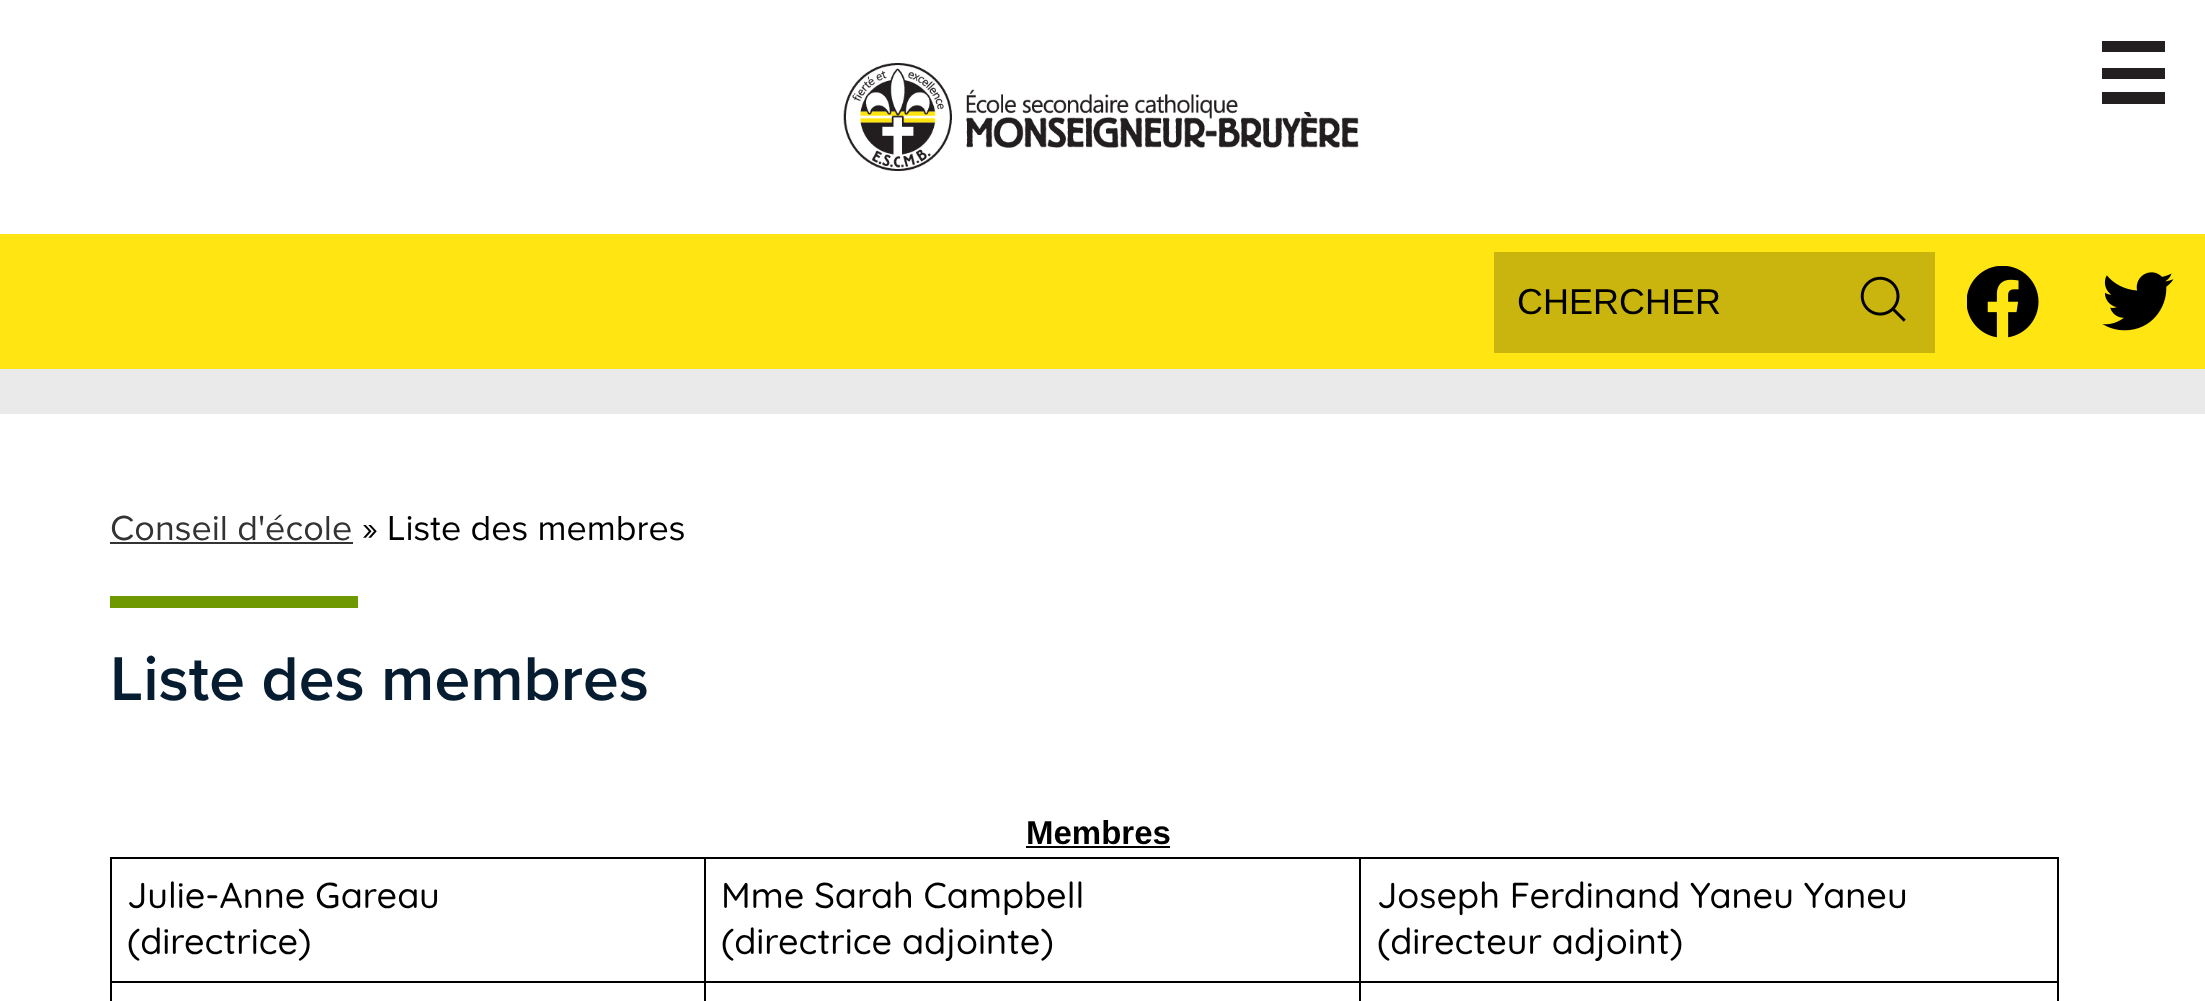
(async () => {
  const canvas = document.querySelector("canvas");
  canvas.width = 2205;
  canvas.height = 1001;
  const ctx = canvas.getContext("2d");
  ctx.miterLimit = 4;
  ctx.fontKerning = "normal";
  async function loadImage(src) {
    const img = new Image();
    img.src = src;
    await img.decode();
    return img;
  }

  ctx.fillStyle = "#eaeaea";
  ctx.fillRect(0, 0, 2205, 1001);
  ctx.fillStyle = "#ffffff";
  ctx.fillRect(0, 0, 2205, 234);
  ctx.drawImage(await loadImage("img/1.png"), 843, 63, 516, 108);
  for (const [x, y, w, h, color] of [
    [2102, 41, 63, 11, "#231f20"],
    [2102, 68, 63, 11, "#231f20"],
    [2102, 92, 63, 12, "#231f20"],
    [0, 234, 2205, 135, "#ffe512"],
    [1494, 252, 441, 101, "#c9b50e"],
  ]) {
    ctx.fillStyle = color;
    ctx.fillRect(x, y, w, h);
  }
  ctx.drawImage(await loadImage("img/2.png"), 1860, 276, 46, 46);
  ctx.drawImage(await loadImage("img/3.png"), 1967, 266, 72, 72);
  ctx.drawImage(await loadImage("img/4.png"), 2102, 272, 72, 59);
  for (const [x, y, w, h, color] of [
    [0, 414, 2205, 587, "#ffffff"],
    [110, 542, 243, 2, "#333333"],
    [110, 596, 248, 12, "#6f9900"],
    [1026, 846, 144, 2, "#000000"],
    [1359, 857, 700, 2, "#000000"],
    [1359, 981, 700, 2, "#000000"],
    [1359, 981, 2, 20, "#000000"],
    [704, 981, 657, 2, "#000000"],
    [1359, 857, 2, 126, "#000000"],
    [704, 857, 657, 2, "#000000"],
    [704, 981, 2, 20, "#000000"],
    [110, 981, 597, 2, "#000000"],
    [704, 857, 2, 126, "#000000"],
    [110, 857, 597, 2, "#000000"],
    [110, 981, 2, 20, "#000000"],
    [110, 857, 2, 126, "#000000"],
    [2057, 981, 2, 20, "#000000"],
    [2057, 857, 2, 126, "#000000"],
  ]) {
    ctx.fillStyle = color;
    ctx.fillRect(x, y, w, h);
  }
  ctx.font = "36px Liberation Sans";
  ctx.fillText("CHERCHER", 1517, 314);
  ctx.font = "36px Proxima Nova";
  ctx.fillStyle = "#333333";
  ctx.fillText("Conseil d'école", 110, 540);
  ctx.fillStyle = "#000000";
  ctx.fillText("» Liste des membres", 362, 540);
  ctx.font = "600 64.1px Proxima Nova";
  ctx.fillStyle = "#061c31";
  ctx.fillText("Liste des membres", 110, 700);
  ctx.font = "bold 33px Liberation Sans";
  ctx.fillStyle = "#000000";
  ctx.fillText("Membres", 1026, 844);
  ctx.font = "500 36px Quicksand";
  for (const [text, x, y] of [
    ["Julie-Anne Gareau", 127, 908],
    ["(directrice)", 127, 954],
    ["Mme Sarah Campbell", 721, 908],
    ["(directrice adjointe)", 721, 954],
    ["Joseph Ferdinand Yaneu Yaneu", 1377, 908],
    ["(directeur adjoint)", 1377, 954],
  ]) {
    ctx.fillText(text, x, y);
  }
})();
